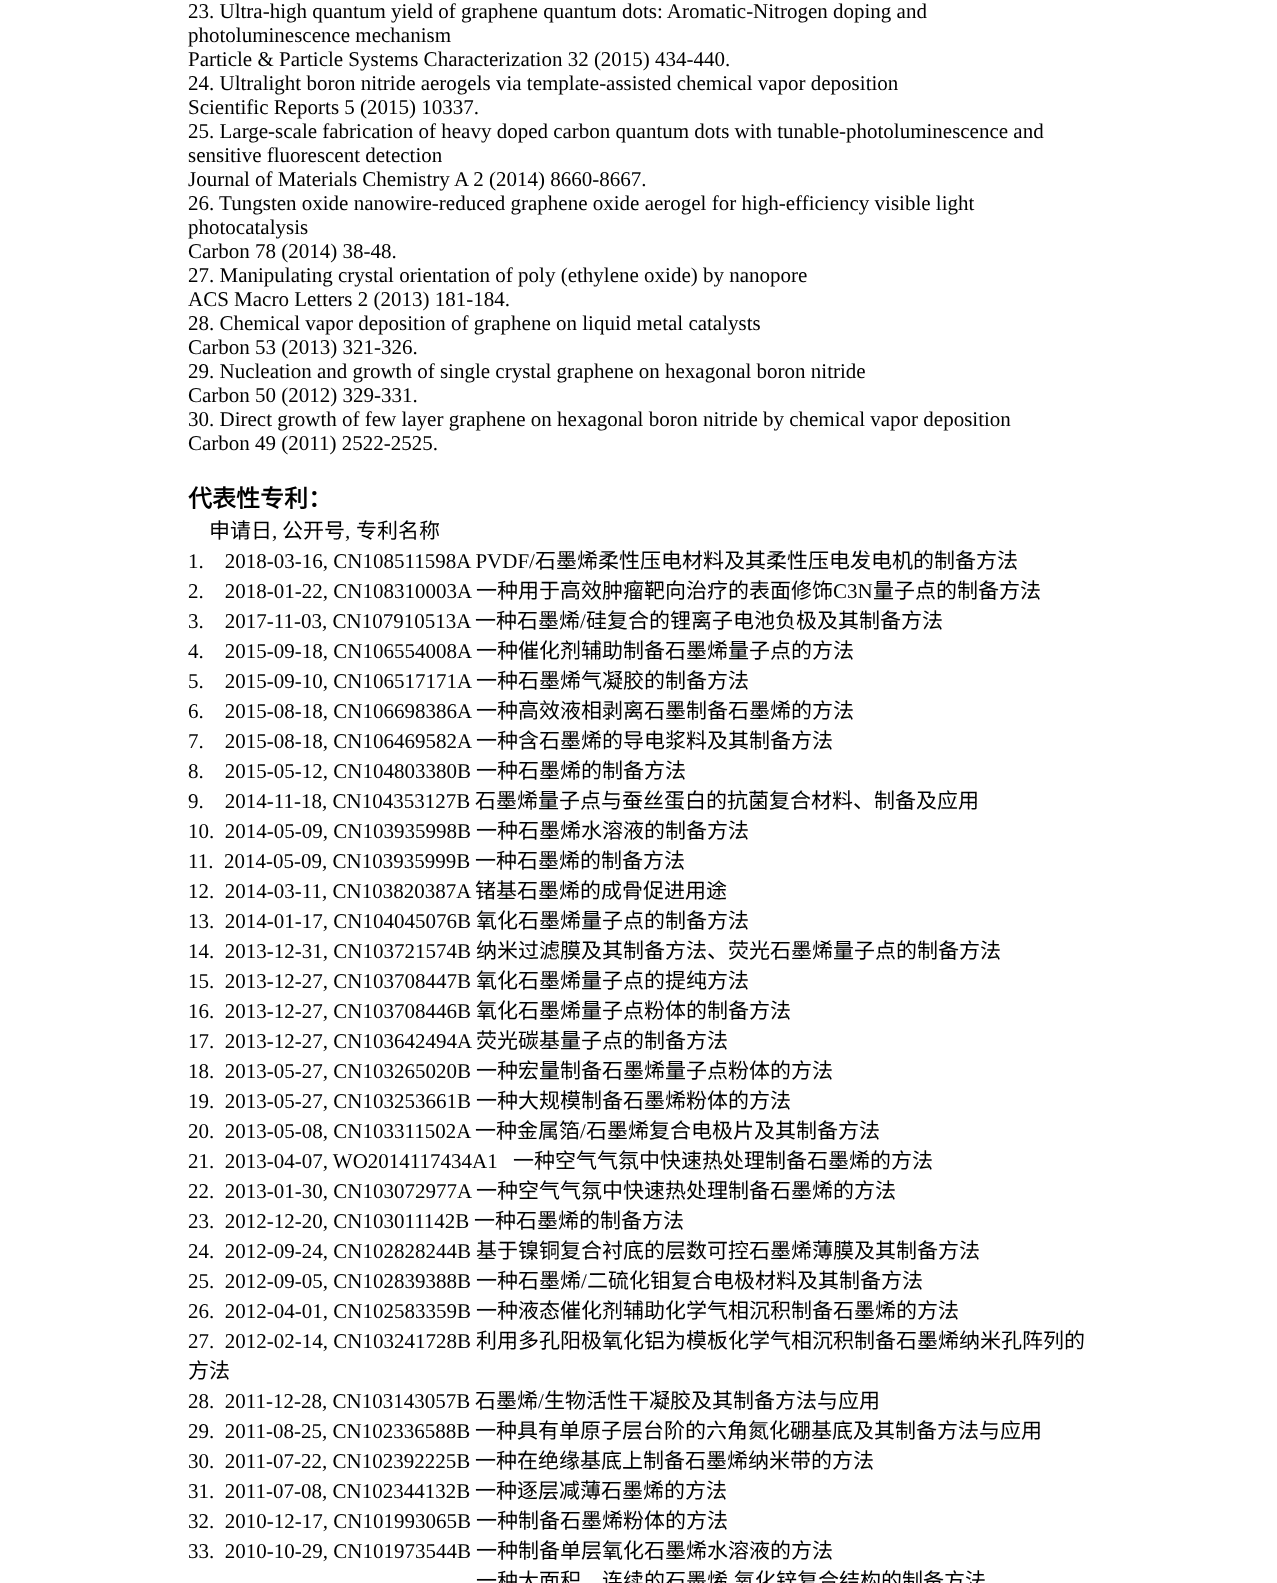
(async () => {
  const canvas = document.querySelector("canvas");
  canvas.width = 1277;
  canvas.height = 1583;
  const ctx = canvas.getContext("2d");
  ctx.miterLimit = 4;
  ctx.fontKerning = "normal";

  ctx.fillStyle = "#ffffff";
  ctx.fillRect(0, 0, 1277, 1583);
  ctx.font = "21px Liberation Serif";
  ctx.fillStyle = "#000000";
  for (const [text, x, y] of [
    ["23. Ultra-high quantum yield of graphene quantum dots: Aromatic-Nitrogen doping and", 188, 18],
    ["photoluminescence mechanism", 188, 42],
    ["Particle & Particle Systems Characterization 32 (2015) 434-440.", 188, 66],
    ["24. Ultralight boron nitride aerogels via template-assisted chemical vapor deposition", 188, 90],
    ["Scientific Reports 5 (2015) 10337.", 188, 114],
    ["25. Large-scale fabrication of heavy doped carbon quantum dots with tunable-photoluminescence and", 188, 138],
    ["sensitive fluorescent detection", 188, 162],
    ["Journal of Materials Chemistry A 2 (2014) 8660-8667.", 188, 186],
    ["26. Tungsten oxide nanowire-reduced graphene oxide aerogel for high-efficiency visible light", 188, 210],
    ["photocatalysis", 188, 234],
    ["Carbon 78 (2014) 38-48.", 188, 258],
    ["27. Manipulating crystal orientation of poly (ethylene oxide) by nanopore", 188, 282],
    ["ACS Macro Letters 2 (2013) 181-184.", 188, 306],
    ["28. Chemical vapor deposition of graphene on liquid metal catalysts", 188, 330],
    ["Carbon 53 (2013) 321-326.", 188, 354],
    ["29. Nucleation and growth of single crystal graphene on hexagonal boron nitride", 188, 378],
    ["Carbon 50 (2012) 329-331.", 188, 402],
    ["30. Direct growth of few layer graphene on hexagonal boron nitride by chemical vapor deposition", 188, 426],
    ["Carbon 49 (2011) 2522-2525.", 188, 450],
  ]) {
    ctx.fillText(text, x, y);
  }
  ctx.font = "bold 24px Noto Sans CJK SC";
  ctx.fillText("代表性专利：", 188, 507);
  ctx.font = "21px Noto Sans CJK SC";
  ctx.fillText("申请日", 209, 538);
  ctx.font = "21px Liberation Serif";
  ctx.fillText(",", 272, 538);
  ctx.font = "21px Noto Sans CJK SC";
  ctx.fillText("公开号", 282, 538);
  ctx.font = "21px Liberation Serif";
  ctx.fillText(",", 345, 538);
  ctx.font = "21px Noto Sans CJK SC";
  ctx.fillText("专利名称", 356, 538);
  ctx.font = "21px Liberation Serif";
  ctx.fillText("1.    2018-03-16, CN108511598A PVDF/", 188, 568);
  ctx.font = "21px Noto Sans CJK SC";
  ctx.fillText("石墨烯柔性压电材料及其柔性压电发电机的制备方法", 535, 568);
  ctx.font = "21px Liberation Serif";
  ctx.fillText("2.    2018-01-22, CN108310003A", 188, 598);
  ctx.font = "21px Noto Sans CJK SC";
  ctx.fillText("一种用于高效肿瘤靶向治疗的表面修饰", 476, 598);
  ctx.font = "21px Liberation Serif";
  ctx.fillText("C3N", 833, 598);
  ctx.font = "21px Noto Sans CJK SC";
  ctx.fillText("量子点的制备方法", 873, 598);
  ctx.font = "21px Liberation Serif";
  ctx.fillText("3.    2017-11-03, CN107910513A", 188, 628);
  ctx.font = "21px Noto Sans CJK SC";
  ctx.fillText("一种石墨烯", 475, 628);
  ctx.font = "21px Liberation Serif";
  ctx.fillText("/", 580, 628);
  ctx.font = "21px Noto Sans CJK SC";
  ctx.fillText("硅复合的锂离子电池负极及其制备方法", 586, 628);
  ctx.font = "21px Liberation Serif";
  ctx.fillText("4.    2015-09-18, CN106554008A", 188, 658);
  ctx.font = "21px Noto Sans CJK SC";
  ctx.fillText("一种催化剂辅助制备石墨烯量子点的方法", 476, 658);
  ctx.font = "21px Liberation Serif";
  ctx.fillText("5.    2015-09-10, CN106517171A", 188, 688);
  ctx.font = "21px Noto Sans CJK SC";
  ctx.fillText("一种石墨烯气凝胶的制备方法", 476, 688);
  ctx.font = "21px Liberation Serif";
  ctx.fillText("6.    2015-08-18, CN106698386A", 188, 718);
  ctx.font = "21px Noto Sans CJK SC";
  ctx.fillText("一种高效液相剥离石墨制备石墨烯的方法", 476, 718);
  ctx.font = "21px Liberation Serif";
  ctx.fillText("7.    2015-08-18, CN106469582A", 188, 748);
  ctx.font = "21px Noto Sans CJK SC";
  ctx.fillText("一种含石墨烯的导电浆料及其制备方法", 476, 748);
  ctx.font = "21px Liberation Serif";
  ctx.fillText("8.    2015-05-12, CN104803380B", 188, 778);
  ctx.font = "21px Noto Sans CJK SC";
  ctx.fillText("一种石墨烯的制备方法", 476, 778);
  ctx.font = "21px Liberation Serif";
  ctx.fillText("9.    2014-11-18, CN104353127B", 188, 808);
  ctx.font = "21px Noto Sans CJK SC";
  ctx.fillText("石墨烯量子点与蚕丝蛋白的抗菌复合材料、制备及应用", 475, 808);
  ctx.font = "21px Liberation Serif";
  ctx.fillText("10.  2014-05-09, CN103935998B", 188, 838);
  ctx.font = "21px Noto Sans CJK SC";
  ctx.fillText("一种石墨烯水溶液的制备方法", 476, 838);
  ctx.font = "21px Liberation Serif";
  ctx.fillText("11.  2014-05-09, CN103935999B", 188, 868);
  ctx.font = "21px Noto Sans CJK SC";
  ctx.fillText("一种石墨烯的制备方法", 475, 868);
  ctx.font = "21px Liberation Serif";
  ctx.fillText("12.  2014-03-11, CN103820387A", 188, 898);
  ctx.font = "21px Noto Sans CJK SC";
  ctx.fillText("锗基石墨烯的成骨促进用途", 475, 898);
  ctx.font = "21px Liberation Serif";
  ctx.fillText("13.  2014-01-17, CN104045076B", 188, 928);
  ctx.font = "21px Noto Sans CJK SC";
  ctx.fillText("氧化石墨烯量子点的制备方法", 476, 928);
  ctx.font = "21px Liberation Serif";
  ctx.fillText("14.  2013-12-31, CN103721574B", 188, 958);
  ctx.font = "21px Noto Sans CJK SC";
  ctx.fillText("纳米过滤膜及其制备方法、荧光石墨烯量子点的制备方法", 476, 958);
  ctx.font = "21px Liberation Serif";
  ctx.fillText("15.  2013-12-27, CN103708447B", 188, 988);
  ctx.font = "21px Noto Sans CJK SC";
  ctx.fillText("氧化石墨烯量子点的提纯方法", 476, 988);
  ctx.font = "21px Liberation Serif";
  ctx.fillText("16.  2013-12-27, CN103708446B", 188, 1018);
  ctx.font = "21px Noto Sans CJK SC";
  ctx.fillText("氧化石墨烯量子点粉体的制备方法", 476, 1018);
  ctx.font = "21px Liberation Serif";
  ctx.fillText("17.  2013-12-27, CN103642494A", 188, 1048);
  ctx.font = "21px Noto Sans CJK SC";
  ctx.fillText("荧光碳基量子点的制备方法", 476, 1048);
  ctx.font = "21px Liberation Serif";
  ctx.fillText("18.  2013-05-27, CN103265020B", 188, 1078);
  ctx.font = "21px Noto Sans CJK SC";
  ctx.fillText("一种宏量制备石墨烯量子点粉体的方法", 476, 1078);
  ctx.font = "21px Liberation Serif";
  ctx.fillText("19.  2013-05-27, CN103253661B", 188, 1108);
  ctx.font = "21px Noto Sans CJK SC";
  ctx.fillText("一种大规模制备石墨烯粉体的方法", 476, 1108);
  ctx.font = "21px Liberation Serif";
  ctx.fillText("20.  2013-05-08, CN103311502A", 188, 1138);
  ctx.font = "21px Noto Sans CJK SC";
  ctx.fillText("一种金属箔", 475, 1138);
  ctx.font = "21px Liberation Serif";
  ctx.fillText("/", 580, 1138);
  ctx.font = "21px Noto Sans CJK SC";
  ctx.fillText("石墨烯复合电极片及其制备方法", 586, 1138);
  ctx.font = "21px Liberation Serif";
  ctx.fillText("21.  2013-04-07, WO2014117434A1", 188, 1168);
  ctx.font = "21px Noto Sans CJK SC";
  ctx.fillText("一种空气气氛中快速热处理制备石墨烯的方法", 513, 1168);
  ctx.font = "21px Liberation Serif";
  ctx.fillText("22.  2013-01-30, CN103072977A", 188, 1198);
  ctx.font = "21px Noto Sans CJK SC";
  ctx.fillText("一种空气气氛中快速热处理制备石墨烯的方法", 476, 1198);
  ctx.font = "21px Liberation Serif";
  ctx.fillText("23.  2012-12-20, CN103011142B", 188, 1228);
  ctx.font = "21px Noto Sans CJK SC";
  ctx.fillText("一种石墨烯的制备方法", 474, 1228);
  ctx.font = "21px Liberation Serif";
  ctx.fillText("24.  2012-09-24, CN102828244B", 188, 1258);
  ctx.font = "21px Noto Sans CJK SC";
  ctx.fillText("基于镍铜复合衬底的层数可控石墨烯薄膜及其制备方法", 476, 1258);
  ctx.font = "21px Liberation Serif";
  ctx.fillText("25.  2012-09-05, CN102839388B", 188, 1288);
  ctx.font = "21px Noto Sans CJK SC";
  ctx.fillText("一种石墨烯", 476, 1288);
  ctx.font = "21px Liberation Serif";
  ctx.fillText("/", 581, 1288);
  ctx.font = "21px Noto Sans CJK SC";
  ctx.fillText("二硫化钼复合电极材料及其制备方法", 587, 1288);
  ctx.font = "21px Liberation Serif";
  ctx.fillText("26.  2012-04-01, CN102583359B", 188, 1318);
  ctx.font = "21px Noto Sans CJK SC";
  ctx.fillText("一种液态催化剂辅助化学气相沉积制备石墨烯的方法", 476, 1318);
  ctx.font = "21px Liberation Serif";
  ctx.fillText("27.  2012-02-14, CN103241728B", 188, 1348);
  ctx.font = "21px Noto Sans CJK SC";
  ctx.fillText("利用多孔阳极氧化铝为模板化学气相沉积制备石墨烯纳米孔阵列的", 476, 1348);
  ctx.fillText("方法", 188, 1378);
  ctx.font = "21px Liberation Serif";
  ctx.fillText("28.  2011-12-28, CN103143057B", 188, 1408);
  ctx.font = "21px Noto Sans CJK SC";
  ctx.fillText("石墨烯", 475, 1408);
  ctx.font = "21px Liberation Serif";
  ctx.fillText("/", 538, 1408);
  ctx.font = "21px Noto Sans CJK SC";
  ctx.fillText("生物活性干凝胶及其制备方法与应用", 544, 1408);
  ctx.font = "21px Liberation Serif";
  ctx.fillText("29.  2011-08-25, CN102336588B", 188, 1438);
  ctx.font = "21px Noto Sans CJK SC";
  ctx.fillText("一种具有单原子层台阶的六角氮化硼基底及其制备方法与应用", 475, 1438);
  ctx.font = "21px Liberation Serif";
  ctx.fillText("30.  2011-07-22, CN102392225B", 188, 1468);
  ctx.font = "21px Noto Sans CJK SC";
  ctx.fillText("一种在绝缘基底上制备石墨烯纳米带的方法", 475, 1468);
  ctx.font = "21px Liberation Serif";
  ctx.fillText("31.  2011-07-08, CN102344132B", 188, 1498);
  ctx.font = "21px Noto Sans CJK SC";
  ctx.fillText("一种逐层减薄石墨烯的方法", 475, 1498);
  ctx.font = "21px Liberation Serif";
  ctx.fillText("32.  2010-12-17, CN101993065B", 188, 1528);
  ctx.font = "21px Noto Sans CJK SC";
  ctx.fillText("一种制备石墨烯粉体的方法", 476, 1528);
  ctx.font = "21px Liberation Serif";
  ctx.fillText("33.  2010-10-29, CN101973544B", 188, 1558);
  ctx.font = "21px Noto Sans CJK SC";
  for (const [text, x, y] of [
    ["一种制备单层氧化石墨烯水溶液的方法", 476, 1558],
    ["一种大面积、连续的石墨烯", 476, 1588],
    ["氧化锌复合结构的制备方法", 734, 1588],
  ]) {
    ctx.fillText(text, x, y);
  }
})();
